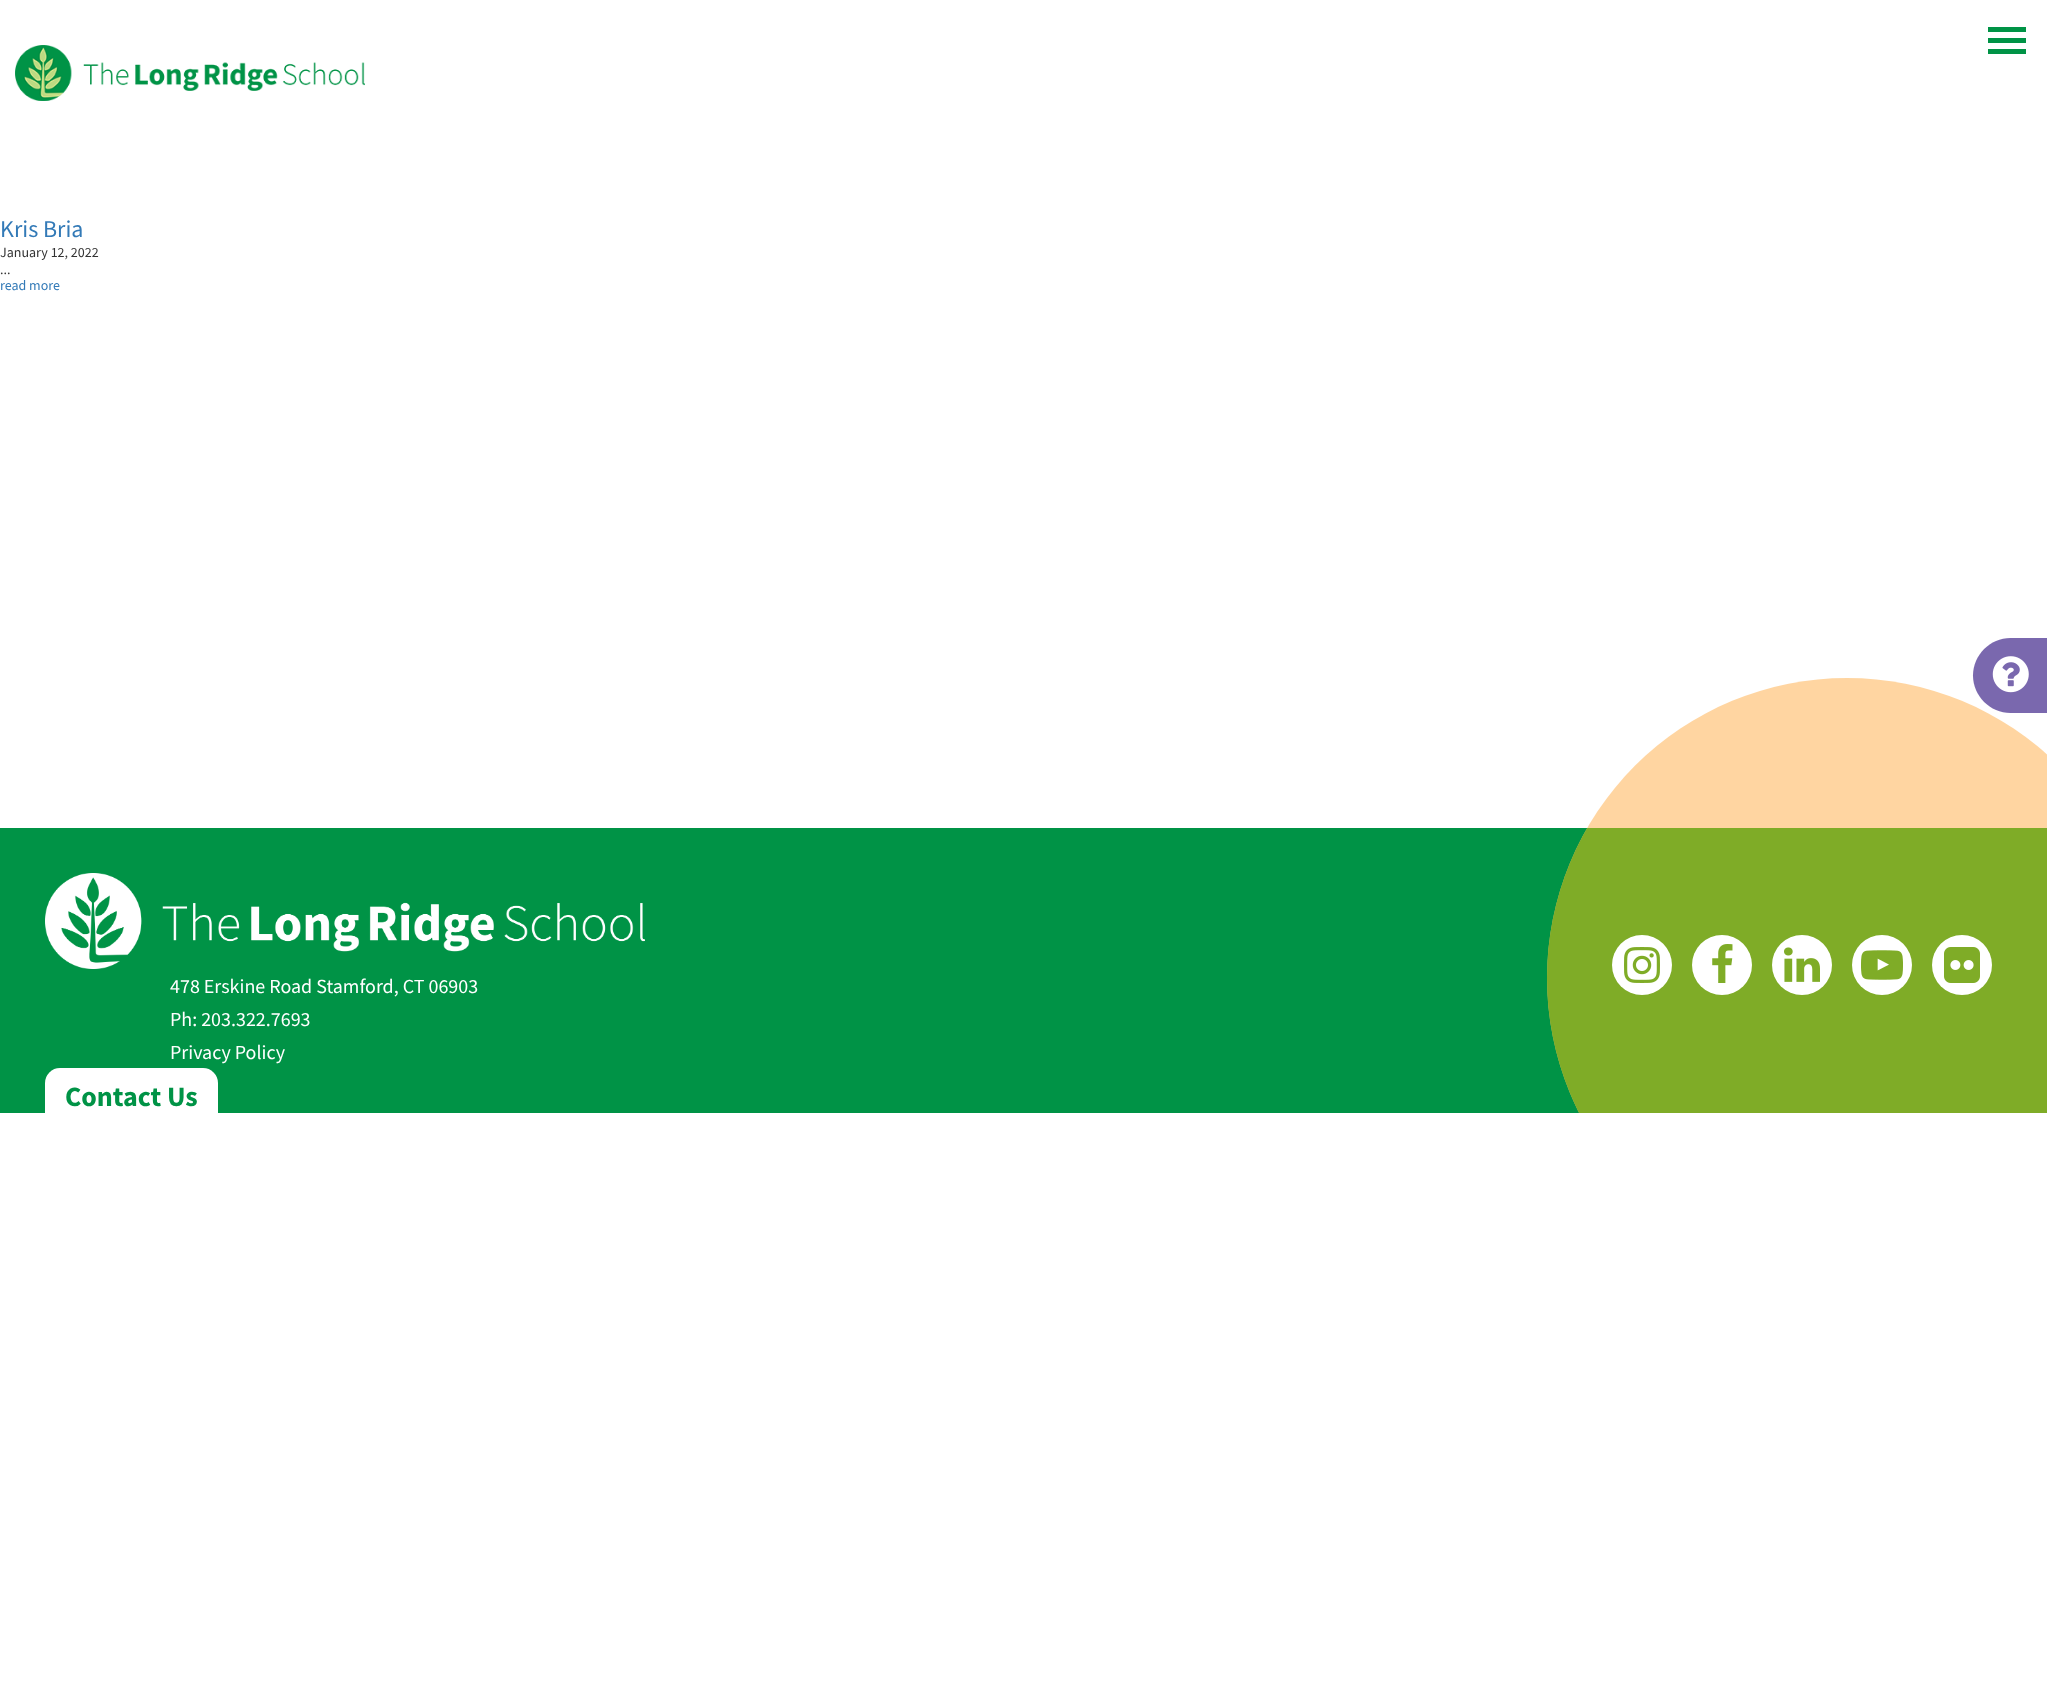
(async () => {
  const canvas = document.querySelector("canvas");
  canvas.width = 2047;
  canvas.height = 1694;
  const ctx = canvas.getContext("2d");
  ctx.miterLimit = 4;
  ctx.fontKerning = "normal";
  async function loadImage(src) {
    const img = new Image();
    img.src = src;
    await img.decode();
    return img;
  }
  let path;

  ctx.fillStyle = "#ffffff";
  ctx.fillRect(0, 0, 2047, 1694);
  for (const [x, y, w, h, color] of [
    [1988, 27, 38, 5, "#009346"],
    [1988, 38, 38, 5, "#009346"],
    [1988, 49, 38, 5, "#009346"],
  ]) {
    ctx.fillStyle = color;
    ctx.fillRect(x, y, w, h);
  }
  ctx.drawImage(await loadImage("img/1.png"), 15, 45, 350, 56);
  ctx.fillRect(0, 828, 1588, 285);
  ctx.save();
  ctx.beginPath();
  ctx.rect(0, 678, 2047, 435);
  ctx.clip();
  ctx.fillStyle = "rgba(255, 199, 130, 0.75)";
  ctx.beginPath();
  ctx.arc(1847, 978, 300, 0, Math.PI * 2);
  ctx.fill();
  ctx.restore();
  ctx.save();
  ctx.beginPath();
  ctx.rect(1024, 828, 1023, 285);
  ctx.clip();
  ctx.fillStyle = "#7fac27";
  ctx.beginPath();
  ctx.arc(1847, 978, 300, 0, Math.PI * 2);
  ctx.fill();
  ctx.restore();
  ctx.fillStyle = "#7a68ae";
  path = new Path2D("M2010.5 638H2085V713H2010.5C1990 713 1973 696 1973 675.5C1973 655 1990 638 2010.5 638Z");
  ctx.fill(path);
  ctx.drawImage(await loadImage("img/2.png"), 1992, 656, 37, 37);
  ctx.drawImage(await loadImage("img/3.png"), 45, 873, 600, 96);
  ctx.fillStyle = "#ffffff";
  ctx.beginPath();
  ctx.arc(1642, 965, 30, 0, Math.PI * 2);
  ctx.fill();
  ctx.drawImage(await loadImage("img/4.png"), 1624, 947, 36, 36);
  ctx.beginPath();
  ctx.arc(1722, 965, 30, 0, Math.PI * 2);
  ctx.fill();
  ctx.drawImage(await loadImage("img/5.png"), 1712, 944, 21, 39);
  ctx.beginPath();
  ctx.arc(1802, 965, 30, 0, Math.PI * 2);
  ctx.fill();
  ctx.drawImage(await loadImage("img/6.png"), 1784, 947, 36, 35);
  ctx.beginPath();
  ctx.arc(1882, 965, 30, 0, Math.PI * 2);
  ctx.fill();
  ctx.drawImage(await loadImage("img/7.png"), 1861, 950, 42, 30);
  ctx.beginPath();
  ctx.arc(1962, 965, 30, 0, Math.PI * 2);
  ctx.fill();
  ctx.drawImage(await loadImage("img/8.png"), 1944, 947, 36, 36);
  ctx.beginPath();
  ctx.roundRect(45, 1068, 173, 45, [15, 15, 0, 0]);
  ctx.fill();
  ctx.font = "24px Source Sans Pro";
  ctx.fillStyle = "#337ab7";
  ctx.fillText("Kris Bria", 0, 237);
  ctx.font = "14px Source Sans Pro";
  ctx.fillStyle = "#333333";
  ctx.fillText("January 12, 2022", 0, 257);
  ctx.fillText("...", 0, 274);
  ctx.fillStyle = "#337ab7";
  ctx.fillText("read more", 0, 290);
  ctx.font = "20px Source Sans Pro";
  ctx.fillStyle = "#ffffff";
  for (const [text, x, y] of [
    ["478 Erskine Road Stamford, CT 06903", 170, 993],
    ["Ph: 203.322.7693", 170, 1026],
    ["Privacy Policy", 170, 1059],
  ]) {
    ctx.fillText(text, x, y);
  }
  ctx.font = "bold 28px Source Sans Pro";
  ctx.fillStyle = "#009346";
  ctx.fillText("Contact Us", 65, 1106);
})();
